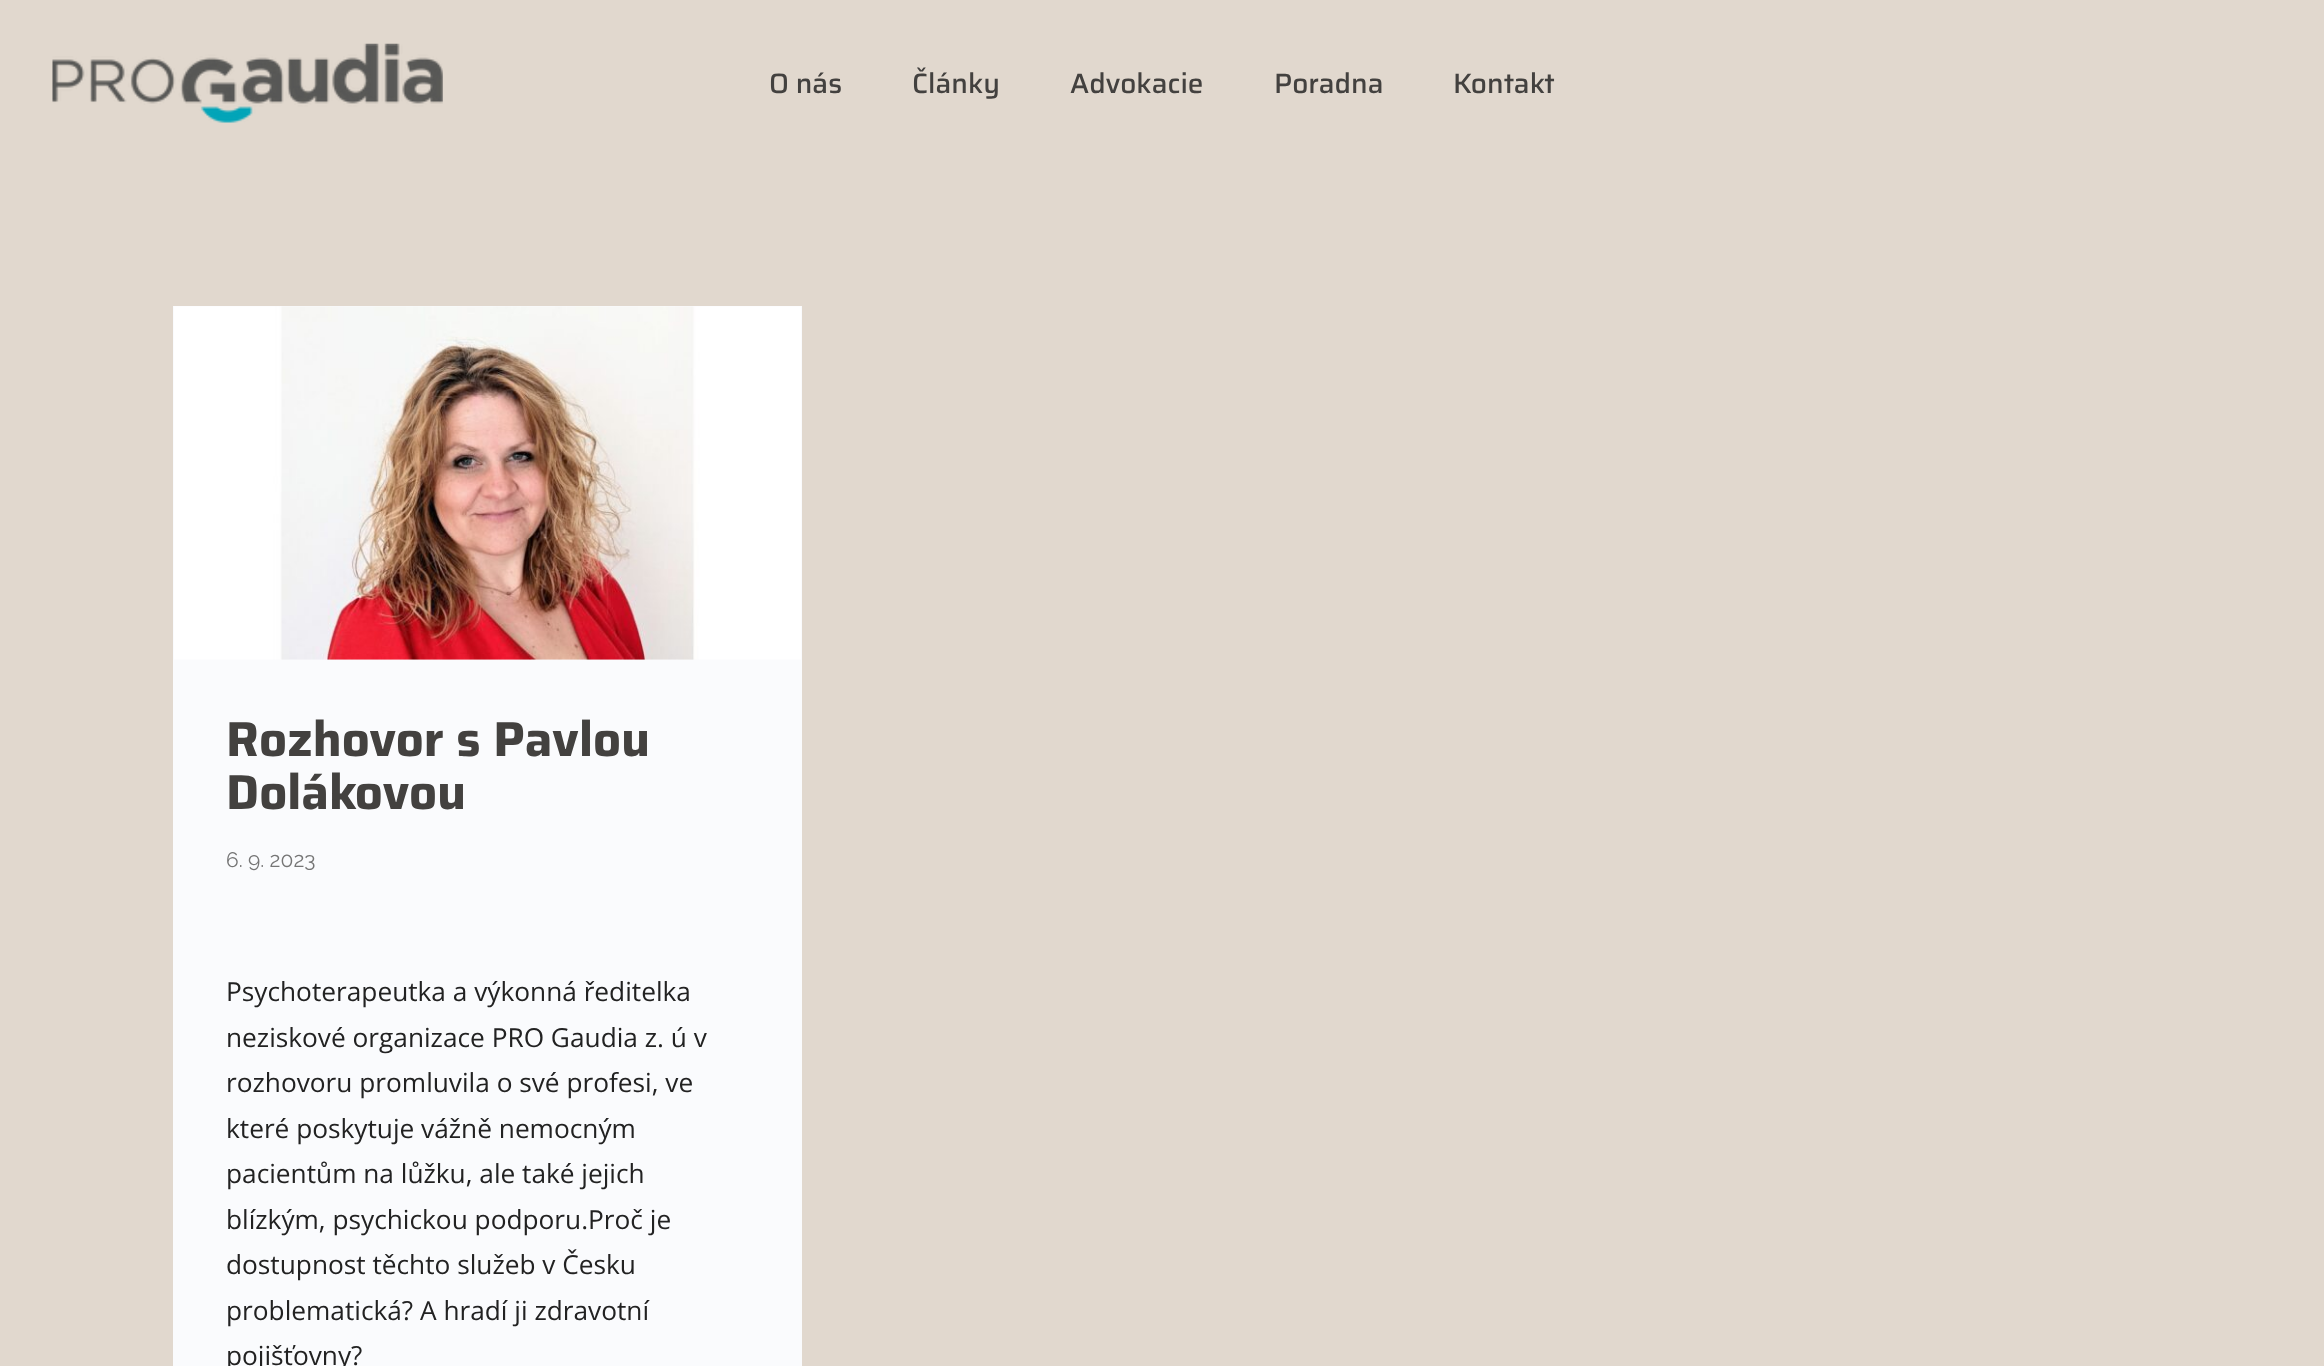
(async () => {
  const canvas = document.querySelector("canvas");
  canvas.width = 2324;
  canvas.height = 1366;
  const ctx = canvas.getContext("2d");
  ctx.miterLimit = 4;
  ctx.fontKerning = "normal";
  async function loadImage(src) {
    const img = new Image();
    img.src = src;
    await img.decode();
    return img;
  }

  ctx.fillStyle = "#e1d8ce";
  ctx.fillRect(0, 0, 2324, 1366);
  ctx.drawImage(await loadImage("img/1.png"), 52, 43, 391, 80);
  ctx.fillStyle = "#fafbfd";
  ctx.fillRect(173, 306, 629, 1060);
  ctx.drawImage(await loadImage("img/2.png"), 174, 306, 627, 354);
  ctx.font = "500 28px Saira";
  ctx.fillStyle = "#43413f";
  for (const [text, x, y] of [
    ["O nás", 769, 93],
    ["Články", 912, 93],
    ["Advokacie", 1070, 93],
    ["Poradna", 1274, 93],
    ["Kontakt", 1453, 93],
  ]) {
    ctx.fillText(text, x, y);
  }
  ctx.font = "bold 49px Saira";
  ctx.fillText("Rozhovor s Pavlou", 226, 756);
  ctx.fillText("Dolákovou", 226, 809);
  ctx.font = "21px Raleway";
  ctx.fillStyle = "#757575";
  ctx.fillText("6. 9. 2023", 226, 867);
  ctx.font = "26.25px Open Sans";
  ctx.fillStyle = "#222222";
  for (const [text, x, y] of [
    ["Psychoterapeutka a výkonná ředitelka", 226, 1001],
    ["neziskové organizace PRO Gaudia z. ú v", 226, 1047],
    ["rozhovoru promluvila o své profesi, ve", 226, 1092],
    ["které poskytuje vážně nemocným", 226, 1138],
    ["pacientům na lůžku, ale také jejich", 226, 1183],
    ["blízkým, psychickou podporu.Proč je", 226, 1229],
    ["dostupnost těchto služeb v Česku", 226, 1274],
    ["problematická? A hradí ji zdravotní", 226, 1320],
    ["pojišťovny?", 226, 1365],
  ]) {
    ctx.fillText(text, x, y);
  }
})();
